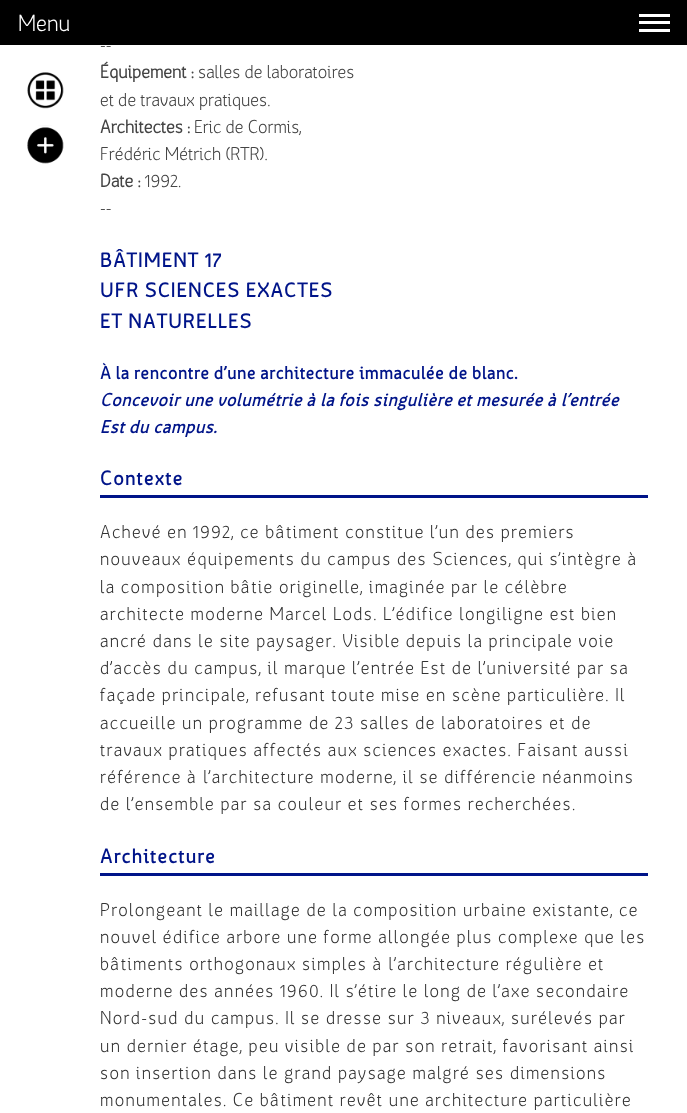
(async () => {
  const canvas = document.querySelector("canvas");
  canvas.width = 687;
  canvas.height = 1113;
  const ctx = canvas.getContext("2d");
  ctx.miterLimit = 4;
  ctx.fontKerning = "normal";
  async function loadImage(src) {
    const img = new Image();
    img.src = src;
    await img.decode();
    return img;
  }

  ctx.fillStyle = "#ffffff";
  ctx.fillRect(0, 0, 687, 1113);
  for (const [x, y, w, h, color] of [
    [0, 0, 687, 45, "#000000"],
    [639, 14, 31, 3, "#ffffff"],
    [639, 21, 31, 3, "#ffffff"],
    [639, 29, 31, 3, "#ffffff"],
  ]) {
    ctx.fillStyle = color;
    ctx.fillRect(x, y, w, h);
  }
  ctx.drawImage(await loadImage("img/1.png"), 27, 72, 37, 37);
  ctx.drawImage(await loadImage("img/2.png"), 27, 125, 37, 39);
  ctx.fillStyle = "#001489";
  ctx.fillRect(100, 495, 548, 3);
  ctx.fillRect(100, 873, 548, 3);
  ctx.font = "300 20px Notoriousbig";
  ctx.fillStyle = "#ffffff";
  ctx.fillText("Menu", 18, 31);
  ctx.font = "300 16px Notoriousbig";
  ctx.fillStyle = "#444444";
  ctx.fillText("--", 100, 51);
  ctx.font = "bold 16px Notoriousbig";
  ctx.fillText("Équipement :", 100, 78);
  ctx.font = "300 16px Notoriousbig";
  ctx.fillText("salles de laboratoires", 198, 78);
  ctx.fillText("et de travaux pratiques.", 100, 106);
  ctx.font = "bold 16px Notoriousbig";
  ctx.fillText("Architectes :", 100, 133);
  ctx.font = "300 16px Notoriousbig";
  ctx.fillText("Eric de Cormis,", 194, 133);
  ctx.fillText("Frédéric Métrich (RTR).", 100, 160);
  ctx.font = "bold 16px Notoriousbig";
  ctx.fillText("Date :", 100, 187);
  ctx.font = "300 16px Notoriousbig";
  ctx.fillText("1992.", 145, 187);
  ctx.fillText("--", 100, 214);
  ctx.letterSpacing = "0.9px";
  ctx.font = "bold 18px 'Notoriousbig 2'";
  ctx.fillStyle = "#001489";
  for (const [text, x, y] of [
    ["BÂTIMENT 17", 100, 267],
    ["UFR SCIENCES EXACTES", 100, 297],
    ["ET NATURELLES", 100, 328],
  ]) {
    ctx.fillText(text, x, y);
  }
  ctx.letterSpacing = "0.32px";
  ctx.font = "bold 16px 'Notoriousbig 2'";
  ctx.fillText("À la rencontre d’une architecture immaculée de blanc.", 100, 379);
  ctx.font = "italic bold 16px Notoriousbig";
  ctx.fillText("Concevoir une volumétrie à la fois singulière et mesurée à l’entrée", 100, 406);
  ctx.fillText("Est du campus.", 100, 433);
  ctx.letterSpacing = "0.9px";
  ctx.font = "bold 18px 'Notoriousbig 2'";
  ctx.fillText("Contexte", 100, 485);
  ctx.letterSpacing = "1.25px";
  ctx.font = "300 16px Notoriousbig";
  ctx.fillStyle = "#333333";
  for (const [text, x, y] of [
    ["Achevé en 1992, ce bâtiment constitue l’un des premiers", 100, 538],
    ["nouveaux équipements du campus des Sciences, qui s’intègre à", 100, 565],
    ["la composition bâtie originelle, imaginée par le célèbre", 100, 593],
    ["architecte moderne Marcel Lods. L’édifice longiligne est bien", 100, 620],
    ["ancré dans le site paysager. Visible depuis la principale voie", 100, 647],
    ["d’accès du campus, il marque l’entrée Est de l’université par sa", 100, 674],
    ["façade principale, refusant toute mise en scène particulière. Il", 100, 701],
    ["accueille un programme de 23 salles de laboratoires et de", 100, 729],
    ["travaux pratiques affectés aux sciences exactes. Faisant aussi", 100, 756],
    ["référence à l’architecture moderne, il se différencie néanmoins", 100, 783],
    ["de l’ensemble par sa couleur et ses formes recherchées.", 100, 810],
  ]) {
    ctx.fillText(text, x, y);
  }
  ctx.letterSpacing = "0.9px";
  ctx.font = "bold 18px 'Notoriousbig 2'";
  ctx.fillStyle = "#001489";
  ctx.fillText("Architecture", 100, 863);
  ctx.letterSpacing = "1.25px";
  ctx.font = "300 16px Notoriousbig";
  ctx.fillStyle = "#333333";
  for (const [text, x, y] of [
    ["Prolongeant le maillage de la composition urbaine existante, ce", 100, 916],
    ["nouvel édifice arbore une forme allongée plus complexe que les", 100, 943],
    ["bâtiments orthogonaux simples à l’architecture régulière et", 100, 970],
    ["moderne des années 1960. Il s’étire le long de l’axe secondaire", 100, 997],
    ["Nord-sud du campus. Il se dresse sur 3 niveaux, surélevés par", 100, 1024],
    ["un dernier étage, peu visible de par son retrait, favorisant ainsi", 100, 1052],
    ["son insertion dans le grand paysage malgré ses dimensions", 100, 1079],
    ["monumentales. Ce bâtiment revêt une architecture particulière", 100, 1106],
  ]) {
    ctx.fillText(text, x, y);
  }
})();
